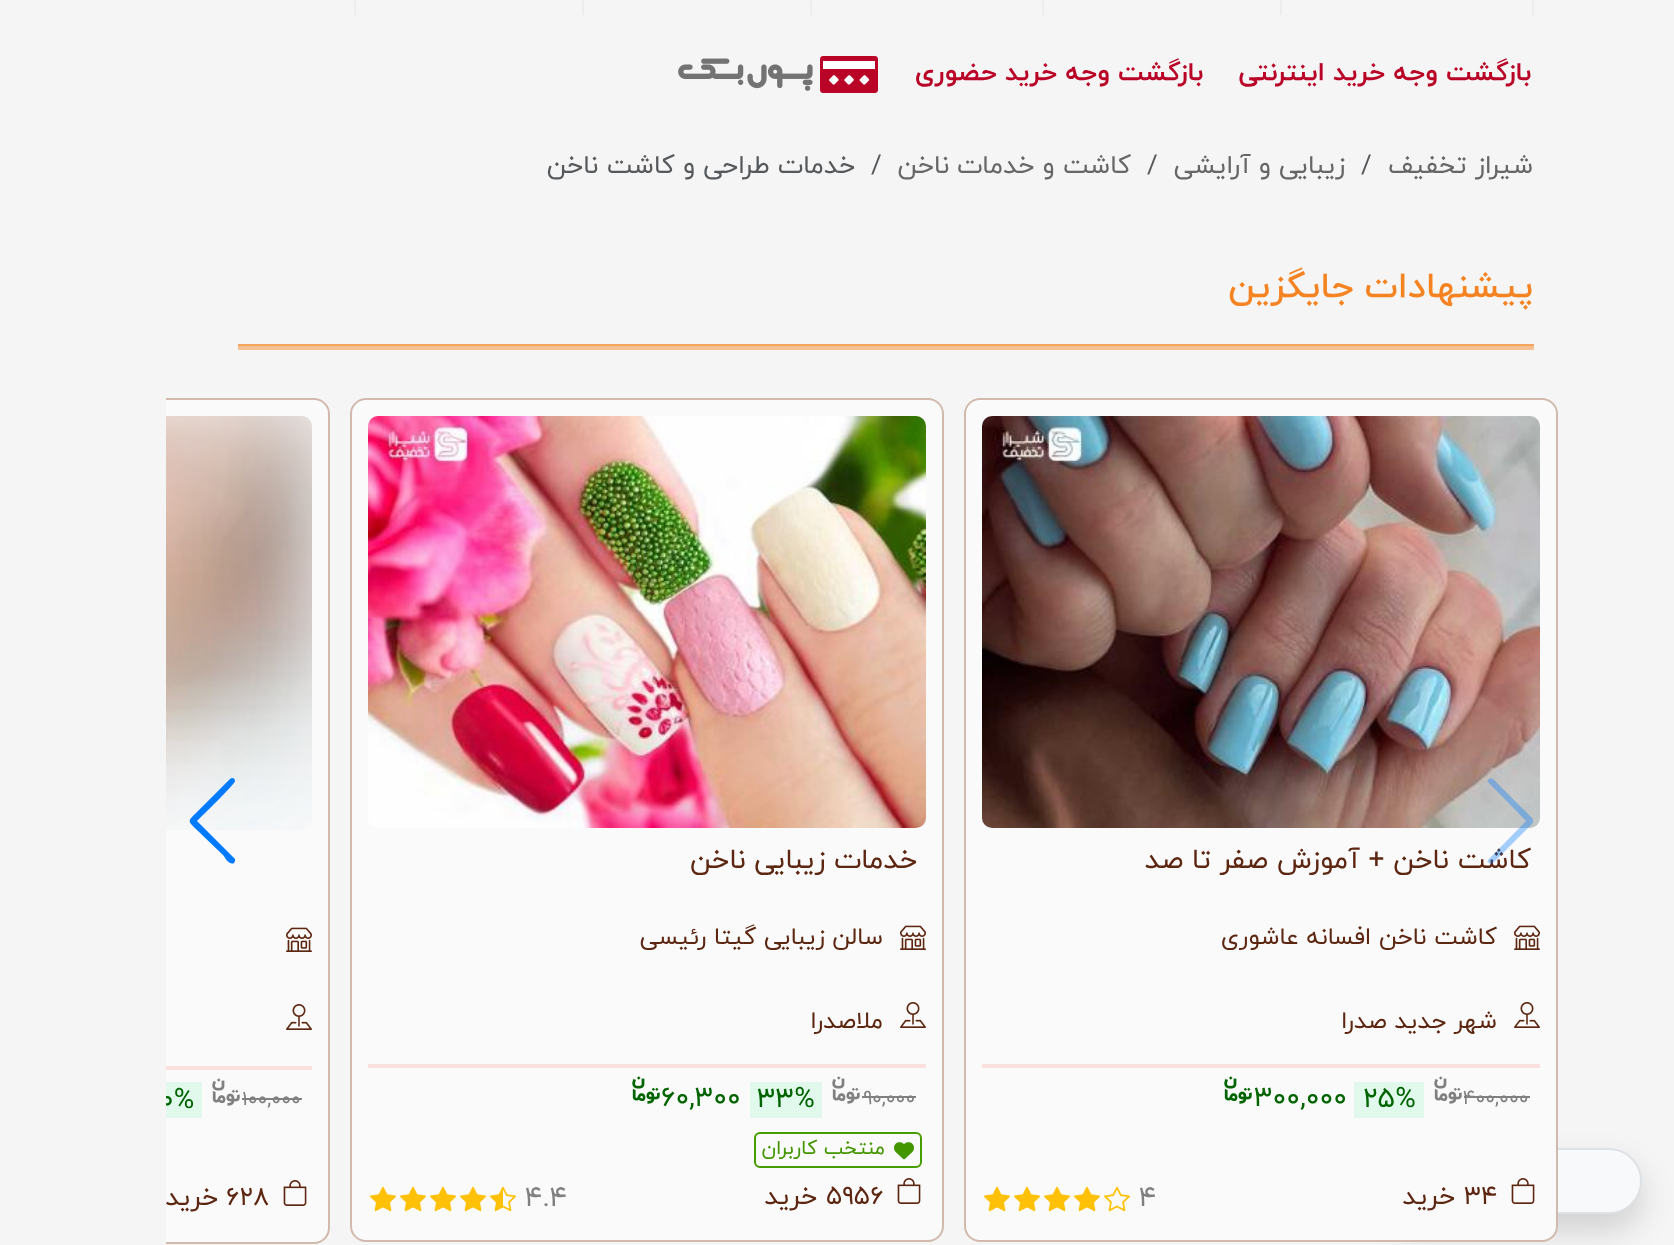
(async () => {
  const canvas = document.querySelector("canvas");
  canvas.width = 1674;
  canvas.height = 1245;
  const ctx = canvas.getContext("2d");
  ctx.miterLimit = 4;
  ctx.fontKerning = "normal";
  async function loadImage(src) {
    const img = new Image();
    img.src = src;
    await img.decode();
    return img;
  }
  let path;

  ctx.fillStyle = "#f5f5f5";
  ctx.fillRect(0, 0, 1674, 1245);
  ctx.fillStyle = "#ededed";
  path = new Path2D("M1534-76V16L1532 14V-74Z");
  ctx.fill(path);
  path = new Path2D("M1282-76V16L1280 14V-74Z");
  ctx.fill(path);
  path = new Path2D("M1044-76V16L1042 14V-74Z");
  ctx.fill(path);
  path = new Path2D("M812-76V16L810 14V-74Z");
  ctx.fill(path);
  path = new Path2D("M584-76V16L582 14V-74Z");
  ctx.fill(path);
  path = new Path2D("M356-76V16L354 14V-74Z");
  ctx.fill(path);
  ctx.drawImage(await loadImage("img/1.png"), 678, 56, 200, 37);
  ctx.fillStyle = "#f5c194";
  ctx.fillRect(238, 346, 1296, 4);
  ctx.fillStyle = "#f5a460";
  ctx.fillRect(238, 344, 1296, 2);
  ctx.fillStyle = "#fafafa";
  ctx.beginPath();
  ctx.roundRect(166, 398, 164, 846, [0, 16, 16, 0]);
  ctx.fill();
  ctx.save();
  ctx.beginPath();
  ctx.rect(166, 398, 1392, 846);
  ctx.clip();
  ctx.beginPath();
  ctx.roundRect(-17, 399, 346, 844, 15);
  ctx.strokeStyle = "#d1baad";
  ctx.lineWidth = 2;
  ctx.stroke();
  ctx.restore();
  ctx.drawImage(await loadImage("img/13.png"), 166, 416, 146, 414);
  ctx.fillStyle = "#007aff";
  path = new Path2D("M230 779C232 777 235 778 235 781C235 784 201 817 197 821L235 859V861L234 863C230 866 224 857 224 856L198 831C187 820 187 822 198 811Z");
  ctx.fill(path);
  ctx.fillStyle = "rgba(0, 0, 0, 0.15)";
  ctx.filter = "blur(16px)";
  ctx.beginPath();
  ctx.roundRect(1390, 1164, 252, 66, 33);
  ctx.fill();
  ctx.filter = "none";
  ctx.fillStyle = "#f8f9fa";
  ctx.beginPath();
  ctx.roundRect(1391, 1149, 250, 64, 32);
  ctx.fill();
  ctx.strokeStyle = "#dee2e6";
  ctx.lineWidth = 2;
  ctx.stroke();
  ctx.fillStyle = "#fafafa";
  ctx.beginPath();
  ctx.roundRect(965, 399, 592, 842, 15);
  ctx.fill();
  ctx.strokeStyle = "#d1baad";
  ctx.stroke();
  ctx.drawImage(await loadImage("img/2.png"), 982, 416, 558, 412);
  ctx.drawImage(await loadImage("img/3.png"), 1514, 925, 26, 25);
  ctx.drawImage(await loadImage("img/4.png"), 1514, 1002, 26, 26);
  ctx.fillStyle = "#fbe0e0";
  ctx.fillRect(982, 1064, 558, 4);
  ctx.fillStyle = "#808080";
  ctx.fillRect(1464, 1096, 66, 2);
  ctx.drawImage(await loadImage("img/5.png"), 1434, 1076, 28, 28);
  ctx.fillStyle = "#e1f8ec";
  ctx.fillRect(1354, 1082, 70, 36);
  ctx.drawImage(await loadImage("img/6.png"), 1224, 1076, 28, 28);
  ctx.drawImage(await loadImage("img/7.png"), 1511, 1178, 24, 26);
  ctx.drawImage(await loadImage("img/8.png"), 1104, 1186, 26, 26);
  ctx.drawImage(await loadImage("img/9.png"), 1074, 1186, 26, 26);
  ctx.drawImage(await loadImage("img/9.png"), 1044, 1186, 26, 26);
  ctx.drawImage(await loadImage("img/9.png"), 1014, 1186, 26, 26);
  ctx.drawImage(await loadImage("img/9.png"), 984, 1186, 26, 26);
  ctx.fillStyle = "#fafafa";
  ctx.beginPath();
  ctx.roundRect(351, 399, 592, 842, 15);
  ctx.fill();
  ctx.stroke();
  ctx.drawImage(await loadImage("img/10.png"), 368, 416, 558, 412);
  ctx.drawImage(await loadImage("img/3.png"), 900, 925, 26, 25);
  ctx.drawImage(await loadImage("img/4.png"), 900, 1002, 26, 26);
  ctx.fillStyle = "#fbe0e0";
  ctx.fillRect(368, 1064, 558, 4);
  ctx.fillStyle = "#808080";
  ctx.fillRect(862, 1096, 54, 2);
  ctx.drawImage(await loadImage("img/5.png"), 832, 1076, 28, 28);
  ctx.fillStyle = "#e1f8ec";
  ctx.fillRect(750, 1082, 72, 36);
  ctx.drawImage(await loadImage("img/6.png"), 632, 1076, 28, 28);
  ctx.beginPath();
  ctx.roundRect(755, 1133, 166, 34, 5);
  ctx.strokeStyle = "#479c00";
  ctx.stroke();
  ctx.drawImage(await loadImage("img/11.png"), 894, 1142, 20, 18);
  ctx.drawImage(await loadImage("img/7.png"), 897, 1178, 24, 26);
  ctx.drawImage(await loadImage("img/12.png"), 490, 1186, 26, 26);
  ctx.drawImage(await loadImage("img/9.png"), 460, 1186, 26, 26);
  ctx.drawImage(await loadImage("img/9.png"), 430, 1186, 26, 26);
  ctx.drawImage(await loadImage("img/9.png"), 400, 1186, 26, 26);
  ctx.drawImage(await loadImage("img/9.png"), 370, 1186, 26, 26);
  ctx.drawImage(await loadImage("img/3.png"), 286, 927, 26, 25);
  ctx.drawImage(await loadImage("img/4.png"), 286, 1004, 26, 26);
  ctx.fillStyle = "#fbe0e0";
  ctx.fillRect(166, 1066, 146, 4);
  ctx.fillStyle = "#808080";
  ctx.fillRect(242, 1098, 60, 2);
  ctx.drawImage(await loadImage("img/5.png"), 212, 1078, 28, 28);
  ctx.fillStyle = "#e1f8ec";
  ctx.fillRect(166, 1082, 36, 36);
  ctx.drawImage(await loadImage("img/7.png"), 283, 1180, 24, 26);
  ctx.direction = "rtl";
  ctx.font = "bold 26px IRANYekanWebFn";
  ctx.fillStyle = "#b90428";
  ctx.fillText("بازگشت وجه خرید اینترنتی", 1531, 80);
  ctx.fillText("بازگشت وجه خرید حضوری", 1203, 80);
  ctx.font = "26px IRANYekanWebFn";
  ctx.fillStyle = "#666666";
  ctx.fillText("شیراز تخفیف", 1533, 173);
  ctx.direction = "ltr";
  ctx.fillStyle = "#56595c";
  ctx.fillText("/", 1361, 173);
  ctx.direction = "rtl";
  ctx.fillStyle = "#666666";
  ctx.fillText("زیبایی و آرایشی", 1345, 173);
  ctx.direction = "ltr";
  ctx.fillStyle = "#56595c";
  ctx.fillText("/", 1147, 173);
  ctx.direction = "rtl";
  ctx.fillStyle = "#666666";
  ctx.fillText("کاشت و خدمات ناخن", 1131, 173);
  ctx.direction = "ltr";
  ctx.fillStyle = "#56595c";
  ctx.fillText("/", 871, 173);
  ctx.direction = "rtl";
  ctx.fillText("خدمات طراحی و کاشت ناخن", 855, 173);
  ctx.font = "500 36px IRANYekanWebFn";
  ctx.fillStyle = "#f58322";
  ctx.fillText("پیشنهادات جایگزین", 1533, 297);
  ctx.font = "28px IRANYekanWebFn";
  ctx.fillStyle = "#5c2611";
  ctx.fillText("کاشت ناخن + آموزش صفر تا صد", 1531, 868);
  ctx.fillStyle = "rgba(0, 122, 255, 0.35)";
  path = new Path2D("M1489 863C1487 862 1487 860 1489 859L1526 821L1489 783C1487 782 1487 780 1489 779C1490 778 1492 778 1493 779L1532 818C1533 819 1533 820 1533 821C1533 822 1533 823 1532 824L1493 863C1492 864 1490 864 1489 863Z");
  ctx.fill(path);
  ctx.font = "24px IRANYekanWebFn";
  ctx.fillStyle = "#5c2611";
  ctx.fillText("کاشت ناخن افسانه عاشوری", 1497, 944);
  ctx.fillText("شهر جدید صدرا", 1497, 1028);
  ctx.direction = "ltr";
  ctx.font = "20px IRANYekanWebFn";
  ctx.fillStyle = "#808080";
  ctx.fillText("۴۰۰,۰۰۰", 1463, 1104);
  ctx.font = "28px IRANYekanWebFn";
  ctx.fillStyle = "#006400";
  ctx.fillText("25%", 1363, 1107);
  ctx.fillText("۳۰۰,۰۰۰", 1254, 1106);
  ctx.font = "26px IRANYekanWebFn";
  ctx.fillStyle = "#5c2611";
  ctx.fillText("34", 1464, 1204);
  ctx.direction = "rtl";
  ctx.fillText("خرید", 1455, 1204);
  ctx.direction = "ltr";
  ctx.font = "28px IRANYekanWebFn";
  ctx.fillStyle = "#808080";
  ctx.fillText("4", 1139, 1206);
  ctx.direction = "rtl";
  ctx.fillStyle = "#5c2611";
  ctx.fillText("خدمات زیبایی ناخن", 917, 868);
  ctx.font = "24px IRANYekanWebFn";
  ctx.fillText("سالن زیبایی گیتا رئیسی", 883, 944);
  ctx.fillText("ملاصدرا", 883, 1028);
  ctx.direction = "ltr";
  ctx.font = "20px IRANYekanWebFn";
  ctx.fillStyle = "#808080";
  ctx.fillText("۹۰,۰۰۰", 863, 1104);
  ctx.font = "28px IRANYekanWebFn";
  ctx.fillStyle = "#006400";
  ctx.fillText("33%", 757, 1107);
  ctx.fillText("۶۰,۳۰۰", 661, 1106);
  ctx.direction = "rtl";
  ctx.font = "20px IRANYekanWebFn";
  ctx.fillStyle = "#439600";
  ctx.fillText("منتخب کاربران", 885, 1154);
  ctx.direction = "ltr";
  ctx.font = "26px IRANYekanWebFn";
  ctx.fillStyle = "#5c2611";
  ctx.fillText("5956", 826, 1204);
  ctx.direction = "rtl";
  ctx.fillText("خرید", 817, 1204);
  ctx.direction = "ltr";
  ctx.font = "28px IRANYekanWebFn";
  ctx.fillStyle = "#808080";
  ctx.fillText("4.4", 525, 1206);
  ctx.font = "20px IRANYekanWebFn";
  ctx.fillText("۱۰۰,۰۰۰", 242, 1105);
  ctx.save();
  ctx.beginPath();
  ctx.rect(166, 398, 1392, 846);
  ctx.clip();
  ctx.font = "28px IRANYekanWebFn";
  ctx.fillStyle = "#006400";
  ctx.fillText("0%", 160, 1108);
  ctx.restore();
  ctx.font = "26px IRANYekanWebFn";
  ctx.fillStyle = "#5c2611";
  ctx.fillText("628", 226, 1205);
  ctx.direction = "rtl";
  ctx.fillText("خرید", 218, 1205);
})();
